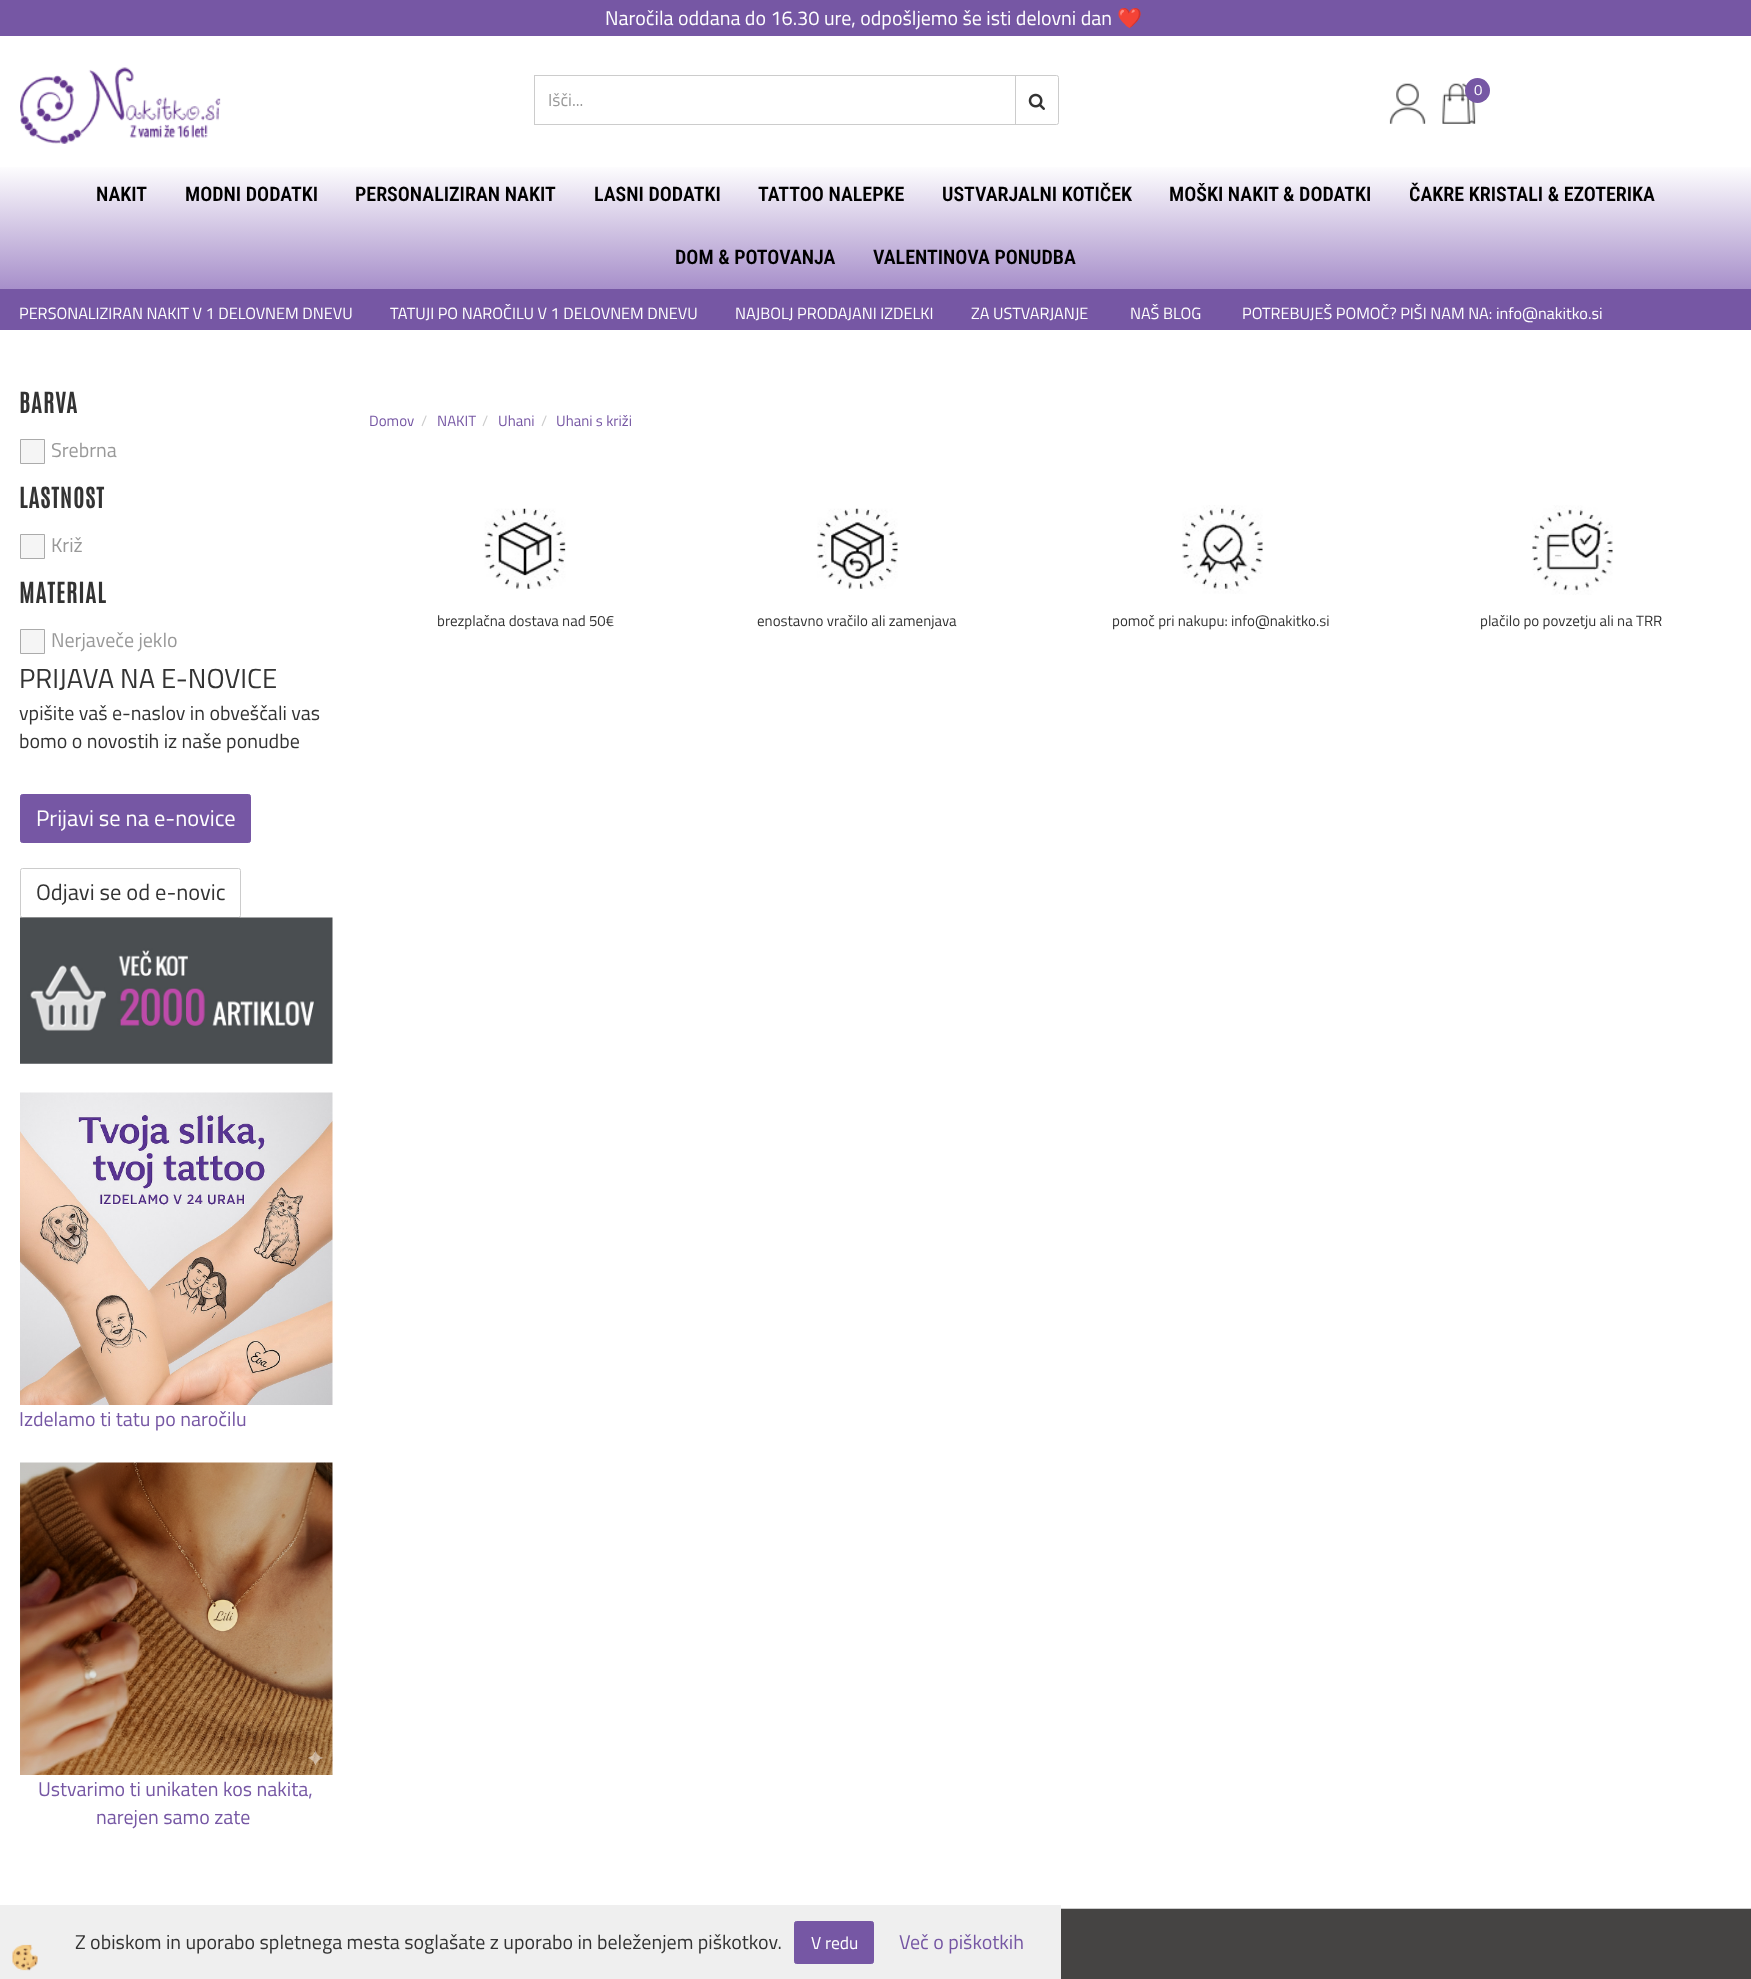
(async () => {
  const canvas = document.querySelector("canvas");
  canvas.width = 1751;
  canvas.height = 1979;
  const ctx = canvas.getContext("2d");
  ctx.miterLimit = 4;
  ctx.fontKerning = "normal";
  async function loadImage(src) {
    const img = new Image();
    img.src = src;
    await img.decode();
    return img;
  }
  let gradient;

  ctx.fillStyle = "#ffffff";
  ctx.fillRect(0, 0, 1751, 1979);
  ctx.fillStyle = "#7657a4";
  ctx.fillRect(0, 0, 1751, 36);
  ctx.drawImage(await loadImage("img/1.png"), 20, 67, 201, 77);
  ctx.drawImage(await loadImage("img/2.png"), 1389, 83, 37, 41);
  ctx.drawImage(await loadImage("img/3.png"), 1442, 83, 34, 41);
  ctx.beginPath();
  ctx.arc(1477.5, 90.5, 12.5, 0, Math.PI * 2);
  ctx.fill();
  ctx.beginPath();
  ctx.roundRect(1015.5, 75.5, 43, 49, [0, 2, 2, 0]);
  ctx.strokeStyle = "#cccccc";
  ctx.stroke();
  ctx.strokeRect(534.5, 75.5, 481, 49);
  ctx.drawImage(await loadImage("img/4.png"), 1028, 93, 17, 17);
  gradient = ctx.createLinearGradient(876, 289, 876, 164);
  gradient.addColorStop(0, "#a78fca");
  gradient.addColorStop(1, "#ffffff");
  ctx.fillStyle = gradient;
  ctx.fillRect(0, 167, 1751, 122);
  ctx.fillStyle = "#7657a4";
  ctx.fillRect(0, 289, 1751, 41);
  ctx.fillStyle = "#f5f5f5";
  ctx.beginPath();
  ctx.rect(20.5, 439.5, 24, 24);
  ctx.fill();
  ctx.strokeStyle = "#ababab";
  ctx.stroke();
  ctx.beginPath();
  ctx.rect(20.5, 534.5, 24, 24);
  ctx.fill();
  ctx.stroke();
  ctx.beginPath();
  ctx.rect(20.5, 629.5, 24, 24);
  ctx.fill();
  ctx.stroke();
  ctx.fillStyle = "#7657a4";
  ctx.beginPath();
  ctx.roundRect(20.5, 794.5, 230, 48, 2);
  ctx.fill();
  ctx.strokeStyle = "#7657a4";
  ctx.stroke();
  ctx.beginPath();
  ctx.roundRect(20.5, 868.5, 220, 49, 2);
  ctx.strokeStyle = "#cccccc";
  ctx.stroke();
  ctx.drawImage(await loadImage("img/5.png"), 20, 917, 313, 147);
  ctx.drawImage(await loadImage("img/6.png"), 20, 1092, 313, 313);
  ctx.drawImage(await loadImage("img/7.png"), 20, 1462, 313, 313);
  ctx.drawImage(await loadImage("img/8.png"), 484, 508, 82, 81);
  ctx.drawImage(await loadImage("img/9.png"), 817, 508, 81, 81);
  ctx.drawImage(await loadImage("img/10.png"), 1182, 505, 81, 89);
  ctx.drawImage(await loadImage("img/11.png"), 1532, 505, 81, 90);
  for (const [x, y, w, h, color] of [
    [1061, 1909, 690, 70, "#454443"],
    [1061, 1908, 690, 1, "#cccccc"],
    [0, 1905, 1061, 74, "#efefef"],
  ]) {
    ctx.fillStyle = color;
    ctx.fillRect(x, y, w, h);
  }
  ctx.drawImage(await loadImage("img/12.png"), 12, 1944, 26, 27);
  ctx.fillStyle = "#7657a4";
  ctx.beginPath();
  ctx.roundRect(794.5, 1921.5, 79, 42, 2);
  ctx.fill();
  ctx.strokeStyle = "#7657a4";
  ctx.stroke();
  ctx.font = "20px Titillium Web";
  ctx.fillStyle = "#ffffff";
  ctx.fillText("Naročila oddana do 16.30 ure, odpošljemo še isti delovni dan", 605, 25);
  ctx.font = "20px Noto Color Emoji";
  ctx.fillText("❤️", 1117, 25);
  ctx.font = "15px Titillium Web";
  ctx.fillText("0", 1474, 95);
  ctx.font = "17.5px Titillium Web";
  ctx.fillStyle = "#999999";
  ctx.fillText("Išči...", 548, 106);
  ctx.font = "600 20px Roboto Condensed";
  ctx.fillStyle = "#000000";
  for (const [text, x, y] of [
    ["NAKIT", 96, 201],
    ["MODNI DODATKI", 185, 201],
    ["PERSONALIZIRAN NAKIT", 355, 201],
    ["LASNI DODATKI", 594, 201],
    ["TATTOO NALEPKE", 758, 201],
    ["USTVARJALNI KOTIČEK", 942, 201],
    ["MOŠKI NAKIT & DODATKI", 1169, 201],
    ["ČAKRE KRISTALI & EZOTERIKA", 1409, 201],
    ["DOM & POTOVANJA", 675, 264],
    ["VALENTINOVA PONUDBA", 873, 264],
  ]) {
    ctx.fillText(text, x, y);
  }
  ctx.font = "16.25px Titillium Web";
  ctx.fillStyle = "#ffffff";
  for (const [text, x, y] of [
    ["PERSONALIZIRAN NAKIT V 1 DELOVNEM DNEVU", 19, 319],
    ["TATUJI PO NAROČILU V 1 DELOVNEM DNEVU", 390, 319],
    ["NAJBOLJ PRODAJANI IZDELKI", 735, 319],
    ["ZA USTVARJANJE", 971, 319],
    ["NAŠ BLOG", 1130, 319],
    ["POTREBUJEŠ POMOČ? PIŠI NAM NA: info@nakitko.si", 1242, 319],
  ]) {
    ctx.fillText(text, x, y);
  }
  ctx.letterSpacing = "1.25px";
  ctx.font = "bold 24px Antonio";
  ctx.fillStyle = "#333333";
  ctx.fillText("BARVA", 19, 413);
  ctx.letterSpacing = "0px";
  ctx.font = "20px Titillium Web";
  ctx.fillStyle = "#999999";
  ctx.fillText("Srebrna", 51, 457);
  ctx.letterSpacing = "1.25px";
  ctx.font = "bold 24px Antonio";
  ctx.fillStyle = "#333333";
  ctx.fillText("LASTNOST", 19, 508);
  ctx.letterSpacing = "0px";
  ctx.font = "20px Titillium Web";
  ctx.fillStyle = "#999999";
  ctx.fillText("Križ", 51, 552);
  ctx.letterSpacing = "1.25px";
  ctx.font = "bold 24px Antonio";
  ctx.fillStyle = "#333333";
  ctx.fillText("MATERIAL", 19, 603);
  ctx.letterSpacing = "0px";
  ctx.font = "20px Titillium Web";
  ctx.fillStyle = "#999999";
  ctx.fillText("Nerjaveče jeklo", 51, 647);
  ctx.font = "27.5px Titillium Web";
  ctx.fillStyle = "#333333";
  ctx.fillText("PRIJAVA NA E-NOVICE", 19, 688);
  ctx.font = "20px Titillium Web";
  ctx.fillText("vpišite vaš e-naslov in obveščali vas", 19, 720);
  ctx.fillText("bomo o novostih iz naše ponudbe", 19, 748);
  ctx.font = "22.5px Titillium Web";
  ctx.fillStyle = "#ffffff";
  ctx.fillText("Prijavi se na e-novice", 36, 826);
  ctx.fillStyle = "#333333";
  ctx.fillText("Odjavi se od e-novic", 36, 900);
  ctx.font = "20px Titillium Web";
  ctx.fillStyle = "#7657a4";
  for (const [text, x, y] of [
    ["Izdelamo ti tatu po naročilu", 19, 1426],
    ["Ustvarimo ti unikaten kos nakita,", 38, 1796],
    ["narejen samo zate", 96, 1824],
  ]) {
    ctx.fillText(text, x, y);
  }
  ctx.font = "15px Titillium Web";
  ctx.fillText("Domov", 369, 426);
  ctx.fillStyle = "#cccccc";
  ctx.fillText("/", 421, 426);
  ctx.fillStyle = "#7657a4";
  ctx.fillText("NAKIT", 437, 426);
  ctx.fillStyle = "#cccccc";
  ctx.fillText("/", 482, 426);
  ctx.fillStyle = "#7657a4";
  ctx.fillText("Uhani", 498, 426);
  ctx.fillStyle = "#cccccc";
  ctx.fillText("/", 541, 426);
  ctx.fillStyle = "#7657a4";
  ctx.fillText("Uhani s križi", 556, 426);
  ctx.fillStyle = "#333333";
  for (const [text, x, y] of [
    ["brezplačna dostava nad 50€", 437, 626],
    ["enostavno vračilo ali zamenjava", 757, 626],
    ["pomoč pri nakupu: info@nakitko.si", 1112, 626],
    ["plačilo po povzetju ali na TRR", 1480, 626],
  ]) {
    ctx.fillText(text, x, y);
  }
  ctx.font = "20px Titillium Web";
  ctx.fillText("Z obiskom in uporabo spletnega mesta soglašate z uporabo in beleženjem piškotkov.", 75, 1949);
  ctx.font = "17.5px Titillium Web";
  ctx.fillStyle = "#ffffff";
  ctx.fillText("V redu", 811, 1949);
  ctx.font = "20px Titillium Web";
  ctx.fillStyle = "#7657a4";
  ctx.fillText("Več o piškotkih", 899, 1949);
})();
